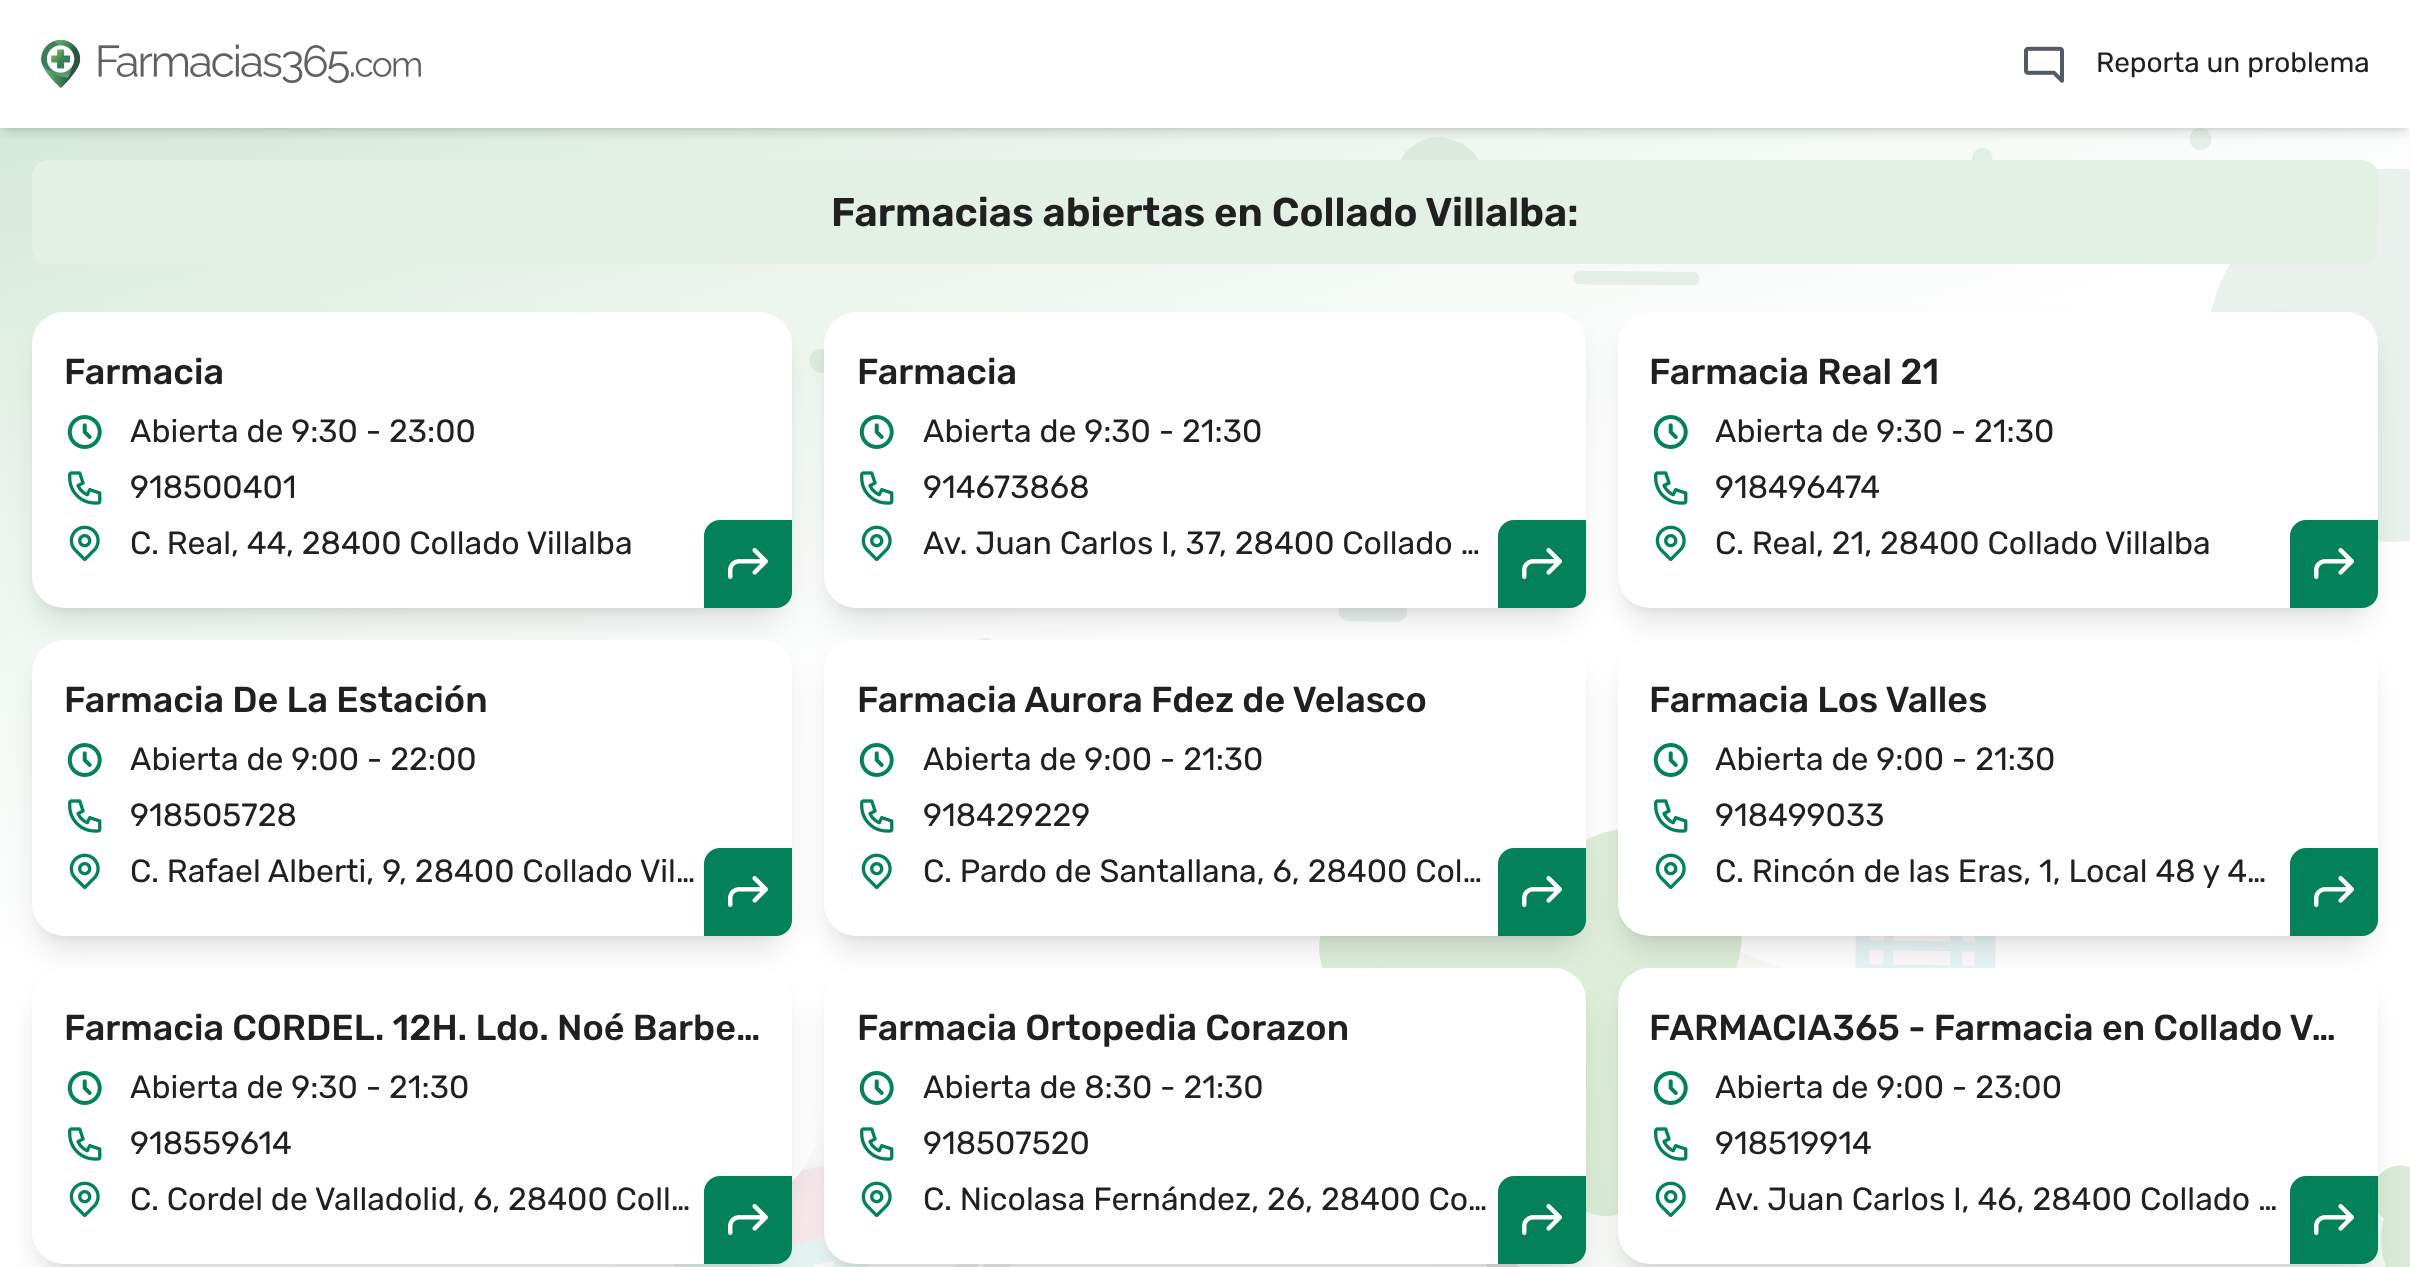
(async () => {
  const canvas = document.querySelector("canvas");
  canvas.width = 2410;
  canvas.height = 1267;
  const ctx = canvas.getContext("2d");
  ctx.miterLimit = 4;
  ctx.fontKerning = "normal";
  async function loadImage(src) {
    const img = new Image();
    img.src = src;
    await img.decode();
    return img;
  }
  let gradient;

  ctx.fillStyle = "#ffffff";
  ctx.fillRect(0, 0, 2410, 1267);
  ctx.drawImage(await loadImage("img/4.png"), 613, 128, 1797, 1139);
  gradient = ctx.createLinearGradient(931, -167, 1479, 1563);
  gradient.addColorStop(0, "rgba(112, 181, 129, 0.3)");
  gradient.addColorStop(0.46, "rgba(255, 255, 255, 0.21)");
  gradient.addColorStop(0.97, "rgba(255, 255, 255, 0)");
  ctx.fillStyle = gradient;
  ctx.fillRect(0, 128, 2410, 1139);
  ctx.save();
  ctx.beginPath();
  ctx.rect(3, 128, 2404, 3);
  ctx.clip();
  ctx.fillStyle = "rgba(0, 0, 0, 0.1)";
  ctx.filter = "blur(4px)";
  ctx.beginPath();
  ctx.rect(4, 8, 2402, 120);
  ctx.fill();
  ctx.filter = "none";
  ctx.restore();
  ctx.save();
  ctx.beginPath();
  ctx.rect(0, 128, 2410, 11);
  ctx.clip();
  ctx.fillStyle = "rgba(0, 0, 0, 0.1)";
  ctx.filter = "blur(6px)";
  ctx.beginPath();
  ctx.rect(2, 10, 2406, 124);
  ctx.fill();
  ctx.filter = "none";
  ctx.restore();
  ctx.drawImage(await loadImage("img/1.png"), 41, 40, 40, 48);
  ctx.drawImage(await loadImage("img/2.png"), 98, 44, 323, 40);
  ctx.drawImage(await loadImage("img/3.png"), 2024, 46, 40, 37);
  ctx.fillStyle = "#e3f0e6";
  ctx.beginPath();
  ctx.roundRect(32, 160, 2346, 104, 16);
  ctx.fill();
  ctx.fillStyle = "rgba(0, 0, 0, 0.1)";
  ctx.filter = "blur(6px)";
  ctx.beginPath();
  ctx.roundRect(40, 328, 744, 280, 24);
  ctx.fill();
  ctx.filter = "none";
  ctx.filter = "blur(15px)";
  ctx.beginPath();
  ctx.roundRect(38, 338, 748, 284, 26);
  ctx.fill();
  ctx.filter = "none";
  ctx.fillStyle = "#ffffff";
  ctx.beginPath();
  ctx.roundRect(32, 312, 760, 296, 32);
  ctx.fill();
  ctx.drawImage(await loadImage("img/5.png"), 67, 415, 35, 34);
  ctx.drawImage(await loadImage("img/6.png"), 68, 471, 34, 34);
  ctx.drawImage(await loadImage("img/7.png"), 69, 525, 31, 37);
  ctx.fillStyle = "#038158";
  ctx.beginPath();
  ctx.roundRect(704, 520, 88, 88, [16, 0, 16, 0]);
  ctx.fill();
  ctx.drawImage(await loadImage("img/8.png"), 728, 548, 40, 31);
  ctx.fillStyle = "rgba(0, 0, 0, 0.1)";
  ctx.filter = "blur(6px)";
  ctx.beginPath();
  ctx.roundRect(832, 328, 746, 280, 24);
  ctx.fill();
  ctx.filter = "none";
  ctx.filter = "blur(15px)";
  ctx.beginPath();
  ctx.roundRect(830, 338, 750, 284, 26);
  ctx.fill();
  ctx.filter = "none";
  ctx.fillStyle = "#ffffff";
  ctx.beginPath();
  ctx.roundRect(824, 312, 762, 296, 32);
  ctx.fill();
  ctx.drawImage(await loadImage("img/5.png"), 859, 415, 35, 34);
  ctx.drawImage(await loadImage("img/6.png"), 860, 471, 34, 34);
  ctx.drawImage(await loadImage("img/7.png"), 861, 525, 31, 37);
  ctx.fillStyle = "#038158";
  ctx.beginPath();
  ctx.roundRect(1498, 520, 88, 88, [16, 0, 16, 0]);
  ctx.fill();
  ctx.drawImage(await loadImage("img/8.png"), 1522, 548, 40, 31);
  ctx.fillStyle = "rgba(0, 0, 0, 0.1)";
  ctx.filter = "blur(6px)";
  ctx.beginPath();
  ctx.roundRect(1626, 328, 744, 280, 24);
  ctx.fill();
  ctx.filter = "none";
  ctx.filter = "blur(15px)";
  ctx.beginPath();
  ctx.roundRect(1624, 338, 748, 284, 26);
  ctx.fill();
  ctx.filter = "none";
  ctx.fillStyle = "#ffffff";
  ctx.beginPath();
  ctx.roundRect(1618, 312, 760, 296, 32);
  ctx.fill();
  ctx.drawImage(await loadImage("img/5.png"), 1653, 415, 35, 34);
  ctx.drawImage(await loadImage("img/6.png"), 1654, 471, 34, 34);
  ctx.drawImage(await loadImage("img/7.png"), 1655, 525, 31, 37);
  ctx.fillStyle = "#038158";
  ctx.beginPath();
  ctx.roundRect(2290, 520, 88, 88, [16, 0, 16, 0]);
  ctx.fill();
  ctx.drawImage(await loadImage("img/8.png"), 2314, 548, 40, 31);
  ctx.fillStyle = "rgba(0, 0, 0, 0.1)";
  ctx.filter = "blur(6px)";
  ctx.beginPath();
  ctx.roundRect(40, 656, 744, 280, 24);
  ctx.fill();
  ctx.filter = "none";
  ctx.filter = "blur(15px)";
  ctx.beginPath();
  ctx.roundRect(38, 666, 748, 284, 26);
  ctx.fill();
  ctx.filter = "none";
  ctx.fillStyle = "#ffffff";
  ctx.beginPath();
  ctx.roundRect(32, 640, 760, 296, 32);
  ctx.fill();
  ctx.drawImage(await loadImage("img/5.png"), 67, 743, 35, 34);
  ctx.drawImage(await loadImage("img/6.png"), 68, 799, 34, 34);
  ctx.drawImage(await loadImage("img/7.png"), 69, 853, 31, 37);
  ctx.fillStyle = "#038158";
  ctx.beginPath();
  ctx.roundRect(704, 848, 88, 88, [16, 0, 16, 0]);
  ctx.fill();
  ctx.drawImage(await loadImage("img/8.png"), 728, 876, 40, 31);
  ctx.fillStyle = "rgba(0, 0, 0, 0.1)";
  ctx.filter = "blur(6px)";
  ctx.beginPath();
  ctx.roundRect(832, 656, 746, 280, 24);
  ctx.fill();
  ctx.filter = "none";
  ctx.filter = "blur(15px)";
  ctx.beginPath();
  ctx.roundRect(830, 666, 750, 284, 26);
  ctx.fill();
  ctx.filter = "none";
  ctx.fillStyle = "#ffffff";
  ctx.beginPath();
  ctx.roundRect(824, 640, 762, 296, 32);
  ctx.fill();
  ctx.drawImage(await loadImage("img/5.png"), 859, 743, 35, 34);
  ctx.drawImage(await loadImage("img/6.png"), 860, 799, 34, 34);
  ctx.drawImage(await loadImage("img/7.png"), 861, 853, 31, 37);
  ctx.fillStyle = "#038158";
  ctx.beginPath();
  ctx.roundRect(1498, 848, 88, 88, [16, 0, 16, 0]);
  ctx.fill();
  ctx.drawImage(await loadImage("img/8.png"), 1522, 876, 40, 31);
  ctx.fillStyle = "rgba(0, 0, 0, 0.1)";
  ctx.filter = "blur(6px)";
  ctx.beginPath();
  ctx.roundRect(1626, 656, 744, 280, 24);
  ctx.fill();
  ctx.filter = "none";
  ctx.filter = "blur(15px)";
  ctx.beginPath();
  ctx.roundRect(1624, 666, 748, 284, 26);
  ctx.fill();
  ctx.filter = "none";
  ctx.fillStyle = "#ffffff";
  ctx.beginPath();
  ctx.roundRect(1618, 640, 760, 296, 32);
  ctx.fill();
  ctx.drawImage(await loadImage("img/5.png"), 1653, 743, 35, 34);
  ctx.drawImage(await loadImage("img/6.png"), 1654, 799, 34, 34);
  ctx.drawImage(await loadImage("img/7.png"), 1655, 853, 31, 37);
  ctx.fillStyle = "#038158";
  ctx.beginPath();
  ctx.roundRect(2290, 848, 88, 88, [16, 0, 16, 0]);
  ctx.fill();
  ctx.drawImage(await loadImage("img/8.png"), 2314, 876, 40, 31);
  ctx.fillStyle = "rgba(0, 0, 0, 0.1)";
  ctx.filter = "blur(6px)";
  ctx.beginPath();
  ctx.roundRect(40, 984, 744, 280, 24);
  ctx.fill();
  ctx.filter = "none";
  ctx.filter = "blur(15px)";
  ctx.beginPath();
  ctx.roundRect(38, 994, 748, 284, 26);
  ctx.fill();
  ctx.filter = "none";
  ctx.fillStyle = "#ffffff";
  ctx.beginPath();
  ctx.roundRect(32, 968, 760, 296, 32);
  ctx.fill();
  ctx.drawImage(await loadImage("img/5.png"), 67, 1071, 35, 34);
  ctx.drawImage(await loadImage("img/6.png"), 68, 1127, 34, 34);
  ctx.drawImage(await loadImage("img/7.png"), 69, 1181, 31, 37);
  ctx.fillStyle = "#038158";
  ctx.beginPath();
  ctx.roundRect(704, 1176, 88, 88, [16, 0, 16, 0]);
  ctx.fill();
  ctx.drawImage(await loadImage("img/8.png"), 728, 1204, 40, 31);
  ctx.fillStyle = "rgba(0, 0, 0, 0.1)";
  ctx.filter = "blur(6px)";
  ctx.beginPath();
  ctx.roundRect(832, 984, 746, 280, 24);
  ctx.fill();
  ctx.filter = "none";
  ctx.filter = "blur(15px)";
  ctx.beginPath();
  ctx.roundRect(830, 994, 750, 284, 26);
  ctx.fill();
  ctx.filter = "none";
  ctx.fillStyle = "#ffffff";
  ctx.beginPath();
  ctx.roundRect(824, 968, 762, 296, 32);
  ctx.fill();
  ctx.drawImage(await loadImage("img/5.png"), 859, 1071, 35, 34);
  ctx.drawImage(await loadImage("img/6.png"), 860, 1127, 34, 34);
  ctx.drawImage(await loadImage("img/7.png"), 861, 1181, 31, 37);
  ctx.fillStyle = "#038158";
  ctx.beginPath();
  ctx.roundRect(1498, 1176, 88, 88, [16, 0, 16, 0]);
  ctx.fill();
  ctx.drawImage(await loadImage("img/8.png"), 1522, 1204, 40, 31);
  ctx.fillStyle = "rgba(0, 0, 0, 0.1)";
  ctx.filter = "blur(6px)";
  ctx.beginPath();
  ctx.roundRect(1626, 984, 744, 280, 24);
  ctx.fill();
  ctx.filter = "none";
  ctx.filter = "blur(15px)";
  ctx.beginPath();
  ctx.roundRect(1624, 994, 748, 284, 26);
  ctx.fill();
  ctx.filter = "none";
  ctx.fillStyle = "#ffffff";
  ctx.beginPath();
  ctx.roundRect(1618, 968, 760, 296, 32);
  ctx.fill();
  ctx.drawImage(await loadImage("img/5.png"), 1653, 1071, 35, 34);
  ctx.drawImage(await loadImage("img/6.png"), 1654, 1127, 34, 34);
  ctx.drawImage(await loadImage("img/7.png"), 1655, 1181, 31, 37);
  ctx.fillStyle = "#038158";
  ctx.beginPath();
  ctx.roundRect(2290, 1176, 88, 88, [16, 0, 16, 0]);
  ctx.fill();
  ctx.drawImage(await loadImage("img/8.png"), 2314, 1204, 40, 31);
  ctx.font = "300 28px Rubik";
  ctx.fillStyle = "#202020";
  ctx.fillText("Reporta un problema", 2096, 72);
  ctx.font = "600 40px Rubik";
  ctx.fillText("Farmacias abiertas en Collado Villalba:", 831, 226);
  ctx.font = "300 36px 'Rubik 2'";
  ctx.fillText("Farmacia", 64, 384);
  ctx.font = "300 32px Rubik";
  for (const [text, x, y] of [
    ["Abierta de 9:30 - 23:00", 130, 442],
    ["918500401", 130, 498],
    ["C. Real, 44, 28400 Collado Villalba", 130, 554],
  ]) {
    ctx.fillText(text, x, y);
  }
  ctx.font = "300 36px 'Rubik 2'";
  ctx.fillText("Farmacia", 857, 384);
  ctx.font = "300 32px Rubik";
  for (const [text, x, y] of [
    ["Abierta de 9:30 - 21:30", 923, 442],
    ["914673868", 923, 498],
    ["Av. Juan Carlos I, 37, 28400 Collado …", 923, 554],
  ]) {
    ctx.fillText(text, x, y);
  }
  ctx.font = "300 36px 'Rubik 2'";
  ctx.fillText("Farmacia Real 21", 1649, 384);
  ctx.font = "300 32px Rubik";
  for (const [text, x, y] of [
    ["Abierta de 9:30 - 21:30", 1715, 442],
    ["918496474", 1715, 498],
    ["C. Real, 21, 28400 Collado Villalba", 1715, 554],
  ]) {
    ctx.fillText(text, x, y);
  }
  ctx.font = "300 36px 'Rubik 2'";
  ctx.fillText("Farmacia De La Estación", 64, 712);
  ctx.font = "300 32px Rubik";
  for (const [text, x, y] of [
    ["Abierta de 9:00 - 22:00", 130, 770],
    ["918505728", 130, 826],
    ["C. Rafael Alberti, 9, 28400 Collado Vil…", 130, 882],
  ]) {
    ctx.fillText(text, x, y);
  }
  ctx.font = "300 36px 'Rubik 2'";
  ctx.fillText("Farmacia Aurora Fdez de Velasco", 857, 712);
  ctx.font = "300 32px Rubik";
  for (const [text, x, y] of [
    ["Abierta de 9:00 - 21:30", 923, 770],
    ["918429229", 923, 826],
    ["C. Pardo de Santallana, 6, 28400 Col…", 923, 882],
  ]) {
    ctx.fillText(text, x, y);
  }
  ctx.font = "300 36px 'Rubik 2'";
  ctx.fillText("Farmacia Los Valles", 1649, 712);
  ctx.font = "300 32px Rubik";
  for (const [text, x, y] of [
    ["Abierta de 9:00 - 21:30", 1715, 770],
    ["918499033", 1715, 826],
    ["C. Rincón de las Eras, 1, Local 48 y 4…", 1715, 882],
  ]) {
    ctx.fillText(text, x, y);
  }
  ctx.font = "300 36px 'Rubik 2'";
  ctx.fillText("Farmacia CORDEL. 12H. Ldo. Noé Barbe…", 64, 1040);
  ctx.font = "300 32px Rubik";
  for (const [text, x, y] of [
    ["Abierta de 9:30 - 21:30", 130, 1098],
    ["918559614", 130, 1154],
    ["C. Cordel de Valladolid, 6, 28400 Coll…", 130, 1210],
  ]) {
    ctx.fillText(text, x, y);
  }
  ctx.font = "300 36px 'Rubik 2'";
  ctx.fillText("Farmacia Ortopedia Corazon", 857, 1040);
  ctx.font = "300 32px Rubik";
  for (const [text, x, y] of [
    ["Abierta de 8:30 - 21:30", 923, 1098],
    ["918507520", 923, 1154],
    ["C. Nicolasa Fernández, 26, 28400 Co…", 923, 1210],
  ]) {
    ctx.fillText(text, x, y);
  }
  ctx.font = "300 36px 'Rubik 2'";
  ctx.fillText("FARMACIA365 - Farmacia en Collado V…", 1649, 1040);
  ctx.font = "300 32px Rubik";
  for (const [text, x, y] of [
    ["Abierta de 9:00 - 23:00", 1715, 1098],
    ["918519914", 1715, 1154],
    ["Av. Juan Carlos I, 46, 28400 Collado …", 1715, 1210],
  ]) {
    ctx.fillText(text, x, y);
  }
})();
